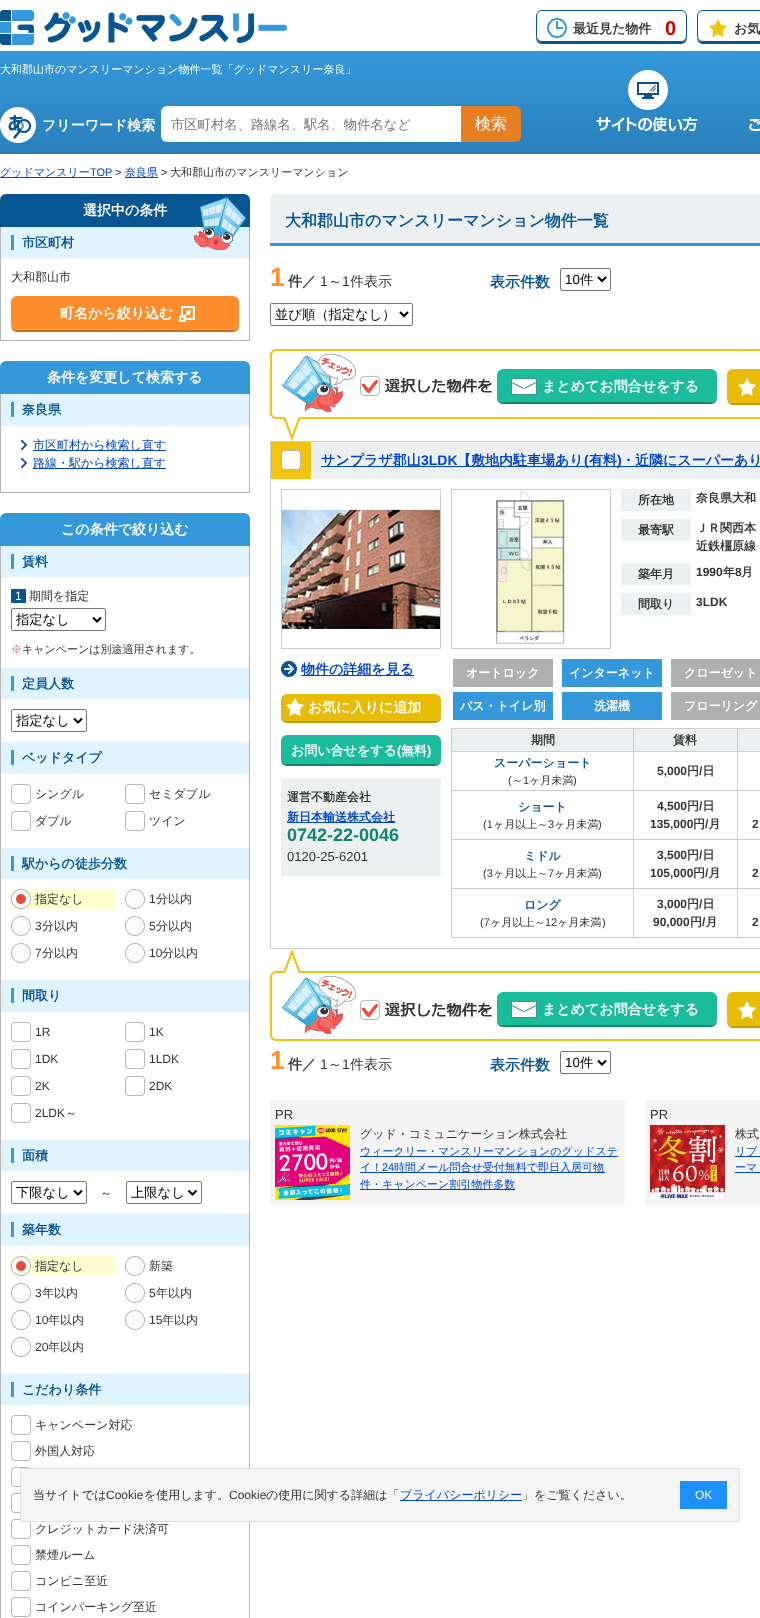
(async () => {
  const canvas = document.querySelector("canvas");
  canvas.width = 760;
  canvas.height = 1618;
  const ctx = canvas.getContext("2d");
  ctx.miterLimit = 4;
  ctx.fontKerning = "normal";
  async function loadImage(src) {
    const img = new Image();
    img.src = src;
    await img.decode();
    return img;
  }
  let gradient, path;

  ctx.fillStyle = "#ffffff";
  ctx.fillRect(0, 0, 760, 1618);
  ctx.fillStyle = "#3498db";
  ctx.fillRect(0, 51, 760, 3);
  ctx.drawImage(await loadImage("img/1.png"), 0, 10, 287, 35);
  ctx.fillStyle = "#085591";
  path = new Path2D("M536 36V38C536 41 539 44 542 44H681C684 44 687 41 687 38V36C687 39 684 42 681 42H542C539 42 536 39 536 36Z");
  ctx.fill(path);
  ctx.fillStyle = "#ffffff";
  ctx.beginPath();
  ctx.roundRect(536.5, 10.5, 150, 31, 5.5);
  ctx.fill();
  ctx.strokeStyle = "#085591";
  ctx.stroke();
  ctx.drawImage(await loadImage("img/2.png"), 547, 18, 20, 20);
  ctx.fillStyle = "#085591";
  path = new Path2D("M697 36V38C697 41 700 44 703 44H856C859 44 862 41 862 38V36C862 39 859 42 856 42H703C700 42 697 39 697 36Z");
  ctx.fill(path);
  ctx.fillStyle = "#ffffff";
  ctx.beginPath();
  ctx.roundRect(697, 10, 63, 32, [6, 0, 0, 6]);
  ctx.fill();
  ctx.beginPath();
  ctx.roundRect(697.5, 10.5, 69, 31, 5.5);
  ctx.stroke();
  ctx.drawImage(await loadImage("img/3.png"), 709, 19, 18, 18);
  gradient = ctx.createLinearGradient(500, 52, 500, 154);
  gradient.addColorStop(0, "#3498db");
  gradient.addColorStop(1, "#2980b9");
  ctx.fillStyle = gradient;
  ctx.fillRect(0, 54, 760, 100);
  ctx.drawImage(await loadImage("img/4.png"), 0, 107, 36, 36);
  ctx.fillStyle = "#ffffff";
  ctx.beginPath();
  ctx.roundRect(161, 106, 300, 36, [6, 0, 0, 6]);
  ctx.fill();
  ctx.fillStyle = "#e67e22";
  ctx.beginPath();
  ctx.roundRect(461, 106, 60, 36, [0, 6, 6, 0]);
  ctx.fill();
  ctx.drawImage(await loadImage("img/5.png"), 596, 70, 102, 62);
  ctx.drawImage(await loadImage("img/6.png"), 749, 119, 11, 12);
  ctx.fillStyle = "#0044cc";
  ctx.fillRect(0, 177, 112, 1);
  ctx.fillRect(125, 177, 33, 1);
  ctx.fillStyle = "#085591";
  ctx.beginPath();
  ctx.roundRect(0, 194, 250, 33, [6, 6, 0, 0]);
  ctx.fill();
  ctx.fillStyle = "#e0f4ff";
  ctx.fillRect(1, 227, 248, 31);
  ctx.drawImage(await loadImage("img/7.png"), 194, 197, 52, 53);
  for (const [x, y, w, h, color] of [
    [249, 227, 1, 114, "#b5b5b5"],
    [0, 340, 250, 1, "#b5b5b5"],
    [0, 227, 1, 114, "#b5b5b5"],
    [11, 235, 3, 15, "#3498db"],
  ]) {
    ctx.fillStyle = color;
    ctx.fillRect(x, y, w, h);
  }
  ctx.fillStyle = "#cf6f19";
  path = new Path2D("M11 324V326C11 329 14 332 17 332H233C236 332 239 329 239 326V324C239 327 236 330 233 330H17C14 330 11 327 11 324Z");
  ctx.fill(path);
  ctx.fillStyle = "#fe8e2c";
  ctx.beginPath();
  ctx.roundRect(11, 296, 228, 34, 6);
  ctx.fill();
  ctx.drawImage(await loadImage("img/8.png"), 179, 306, 16, 16);
  ctx.fillStyle = "#3498db";
  ctx.beginPath();
  ctx.roundRect(0, 361, 250, 33, [6, 6, 0, 0]);
  ctx.fill();
  for (const [x, y, w, h, color] of [
    [249, 394, 1, 99, "#b5b5b5"],
    [0, 492, 250, 1, "#b5b5b5"],
    [0, 394, 1, 99, "#b5b5b5"],
    [1, 394, 248, 32, "#e0f4ff"],
    [11, 402, 3, 15, "#3498db"],
  ]) {
    ctx.fillStyle = color;
    ctx.fillRect(x, y, w, h);
  }
  ctx.drawImage(await loadImage("img/9.png"), 21, 440, 6, 10);
  ctx.fillStyle = "#0044cc";
  ctx.fillRect(33, 450, 133, 1);
  ctx.drawImage(await loadImage("img/9.png"), 21, 458, 6, 10);
  ctx.fillRect(33, 468, 133, 1);
  ctx.fillStyle = "#3498db";
  ctx.beginPath();
  ctx.roundRect(0, 513, 250, 33, [6, 6, 0, 0]);
  ctx.fill();
  for (const [x, y, w, h, color] of [
    [249, 546, 1, 1072, "#b5b5b5"],
    [0, 546, 1, 1072, "#b5b5b5"],
    [1, 546, 248, 31, "#e0f4ff"],
    [11, 554, 3, 15, "#3498db"],
    [11, 589, 15, 14, "#085591"],
  ]) {
    ctx.fillStyle = color;
    ctx.fillRect(x, y, w, h);
  }
  ctx.beginPath();
  ctx.roundRect(11.5, 608.5, 94, 22, 1.5);
  ctx.strokeStyle = "#767676";
  ctx.stroke();
  path = new Path2D("M93 617.5L97 621.5L101 617.5");
  ctx.strokeStyle = "#000000";
  ctx.lineWidth = 2;
  ctx.stroke(path);
  ctx.fillStyle = "#e0f4ff";
  ctx.fillRect(1, 668, 248, 31);
  ctx.fillStyle = "#3498db";
  ctx.fillRect(11, 676, 3, 15);
  ctx.beginPath();
  ctx.roundRect(11.5, 709.5, 75, 22, 1.5);
  ctx.strokeStyle = "#767676";
  ctx.lineWidth = 1;
  ctx.stroke();
  path = new Path2D("M74 718.5L78 722.5L82 718.5");
  ctx.strokeStyle = "#000000";
  ctx.lineWidth = 2;
  ctx.stroke(path);
  ctx.fillStyle = "#e0f4ff";
  ctx.fillRect(1, 742, 248, 32);
  ctx.fillStyle = "#3498db";
  ctx.fillRect(11, 750, 3, 15);
  ctx.drawImage(await loadImage("img/10.png"), 11, 784, 20, 20);
  ctx.drawImage(await loadImage("img/10.png"), 125, 784, 20, 20);
  ctx.drawImage(await loadImage("img/10.png"), 11, 811, 20, 20);
  ctx.drawImage(await loadImage("img/10.png"), 125, 811, 20, 20);
  for (const [x, y, w, h, color] of [
    [1, 848, 248, 31, "#e0f4ff"],
    [11, 856, 3, 15, "#3498db"],
    [11, 889, 104, 20, "#ffffd0"],
  ]) {
    ctx.fillStyle = color;
    ctx.fillRect(x, y, w, h);
  }
  ctx.drawImage(await loadImage("img/11.png"), 11, 889, 20, 20);
  ctx.drawImage(await loadImage("img/12.png"), 125, 889, 20, 20);
  ctx.drawImage(await loadImage("img/12.png"), 11, 916, 20, 20);
  ctx.drawImage(await loadImage("img/12.png"), 125, 916, 20, 20);
  ctx.drawImage(await loadImage("img/12.png"), 11, 943, 20, 20);
  ctx.drawImage(await loadImage("img/12.png"), 125, 943, 20, 20);
  ctx.fillStyle = "#e0f4ff";
  ctx.fillRect(1, 980, 248, 32);
  ctx.fillStyle = "#3498db";
  ctx.fillRect(11, 988, 3, 15);
  ctx.drawImage(await loadImage("img/10.png"), 11, 1022, 20, 20);
  ctx.drawImage(await loadImage("img/10.png"), 125, 1022, 20, 20);
  ctx.drawImage(await loadImage("img/10.png"), 11, 1049, 20, 20);
  ctx.drawImage(await loadImage("img/10.png"), 125, 1049, 20, 20);
  ctx.drawImage(await loadImage("img/10.png"), 11, 1076, 20, 20);
  ctx.drawImage(await loadImage("img/10.png"), 125, 1076, 20, 20);
  ctx.drawImage(await loadImage("img/10.png"), 11, 1103, 20, 20);
  ctx.fillStyle = "#e0f4ff";
  ctx.fillRect(1, 1140, 248, 31);
  ctx.fillStyle = "#3498db";
  ctx.fillRect(11, 1148, 3, 15);
  ctx.beginPath();
  ctx.roundRect(11.5, 1181.5, 75, 22, 1.5);
  ctx.strokeStyle = "#767676";
  ctx.lineWidth = 1;
  ctx.stroke();
  path = new Path2D("M74 1190.5L78 1194.5L82 1190.5");
  ctx.strokeStyle = "#000000";
  ctx.lineWidth = 2;
  ctx.stroke(path);
  ctx.beginPath();
  ctx.roundRect(126.5, 1181.5, 75, 22, 1.5);
  ctx.strokeStyle = "#767676";
  ctx.lineWidth = 1;
  ctx.stroke();
  path = new Path2D("M188.5 1190.5L192.5 1194.5L196.5 1190.5");
  ctx.strokeStyle = "#000000";
  ctx.lineWidth = 2;
  ctx.stroke(path);
  for (const [x, y, w, h, color] of [
    [1, 1214, 248, 32, "#e0f4ff"],
    [11, 1222, 3, 15, "#3498db"],
    [11, 1256, 104, 20, "#ffffd0"],
  ]) {
    ctx.fillStyle = color;
    ctx.fillRect(x, y, w, h);
  }
  ctx.drawImage(await loadImage("img/11.png"), 11, 1256, 20, 20);
  ctx.drawImage(await loadImage("img/12.png"), 125, 1256, 20, 20);
  ctx.drawImage(await loadImage("img/12.png"), 11, 1283, 20, 20);
  ctx.drawImage(await loadImage("img/12.png"), 125, 1283, 20, 20);
  ctx.drawImage(await loadImage("img/12.png"), 11, 1310, 20, 20);
  ctx.drawImage(await loadImage("img/12.png"), 125, 1310, 20, 20);
  ctx.drawImage(await loadImage("img/12.png"), 11, 1337, 20, 20);
  ctx.fillStyle = "#e0f4ff";
  ctx.fillRect(1, 1374, 248, 31);
  ctx.fillStyle = "#3498db";
  ctx.fillRect(11, 1382, 3, 15);
  ctx.drawImage(await loadImage("img/10.png"), 11, 1415, 20, 20);
  ctx.drawImage(await loadImage("img/10.png"), 11, 1441, 20, 20);
  ctx.drawImage(await loadImage("img/13.png"), 11, 1467, 19, 20);
  ctx.drawImage(await loadImage("img/14.png"), 11, 1493, 9, 20);
  ctx.drawImage(await loadImage("img/10.png"), 11, 1519, 20, 20);
  ctx.drawImage(await loadImage("img/10.png"), 11, 1545, 20, 20);
  ctx.drawImage(await loadImage("img/10.png"), 11, 1571, 20, 20);
  ctx.drawImage(await loadImage("img/10.png"), 11, 1597, 20, 20);
  ctx.fillStyle = "#ecf0f1";
  path = new Path2D("M276 194H760C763.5 194 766 196.5 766 200V246H270V200C270 196.5 272.5 194 276 194Z");
  ctx.fill(path);
  ctx.fillStyle = "#3498db";
  ctx.fillRect(270, 243, 490, 3);
  ctx.beginPath();
  ctx.roundRect(560.5, 268.5, 50, 22, 1.5);
  ctx.strokeStyle = "#767676";
  ctx.lineWidth = 1;
  ctx.stroke();
  path = new Path2D("M598 277L602 281L606 277");
  ctx.strokeStyle = "#000000";
  ctx.lineWidth = 2;
  ctx.stroke(path);
  ctx.beginPath();
  ctx.roundRect(270.5, 303.5, 142, 22, 1.5);
  ctx.strokeStyle = "#767676";
  ctx.lineWidth = 1;
  ctx.stroke();
  path = new Path2D("M400 312L404 316L408 312");
  ctx.strokeStyle = "#000000";
  ctx.lineWidth = 2;
  ctx.stroke(path);
  ctx.drawImage(await loadImage("img/15.png"), 270, 349, 490, 92);
  ctx.drawImage(await loadImage("img/16.png"), 360, 376, 132, 20);
  ctx.fillStyle = "#11856e";
  path = new Path2D("M497 396V398C497 401 500 404 503 404H711C714 404 717 401 717 398V396C717 399 714 402 711 402H503C500 402 497 399 497 396Z");
  ctx.fill(path);
  ctx.fillStyle = "#1abc9c";
  ctx.beginPath();
  ctx.roundRect(497, 369, 220, 33, 6);
  ctx.fill();
  ctx.drawImage(await loadImage("img/17.png"), 511, 378, 26, 17);
  ctx.fillStyle = "#bf9a04";
  path = new Path2D("M727 397C727 400 728 404 732 405H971C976 405 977 401 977 397C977 400 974 403 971 403H733C730 403 727 400 727 397Z");
  ctx.fill(path);
  ctx.fillStyle = "#e8bb07";
  ctx.beginPath();
  ctx.roundRect(727, 369, 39, 34, 6);
  ctx.fill();
  ctx.drawImage(await loadImage("img/18.png"), 738, 378, 18, 18);
  ctx.strokeStyle = "#cccbcb";
  ctx.lineWidth = 1;
  ctx.strokeRect(270.5, 441.5, 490, 507);
  ctx.fillStyle = "#f1c40f";
  ctx.fillRect(271, 442, 40, 37);
  ctx.drawImage(await loadImage("img/19.png"), 281, 450, 20, 20);
  ctx.fillStyle = "#ecf0f1";
  ctx.fillRect(311, 442, 449, 37);
  ctx.fillStyle = "#0044cc";
  ctx.fillRect(321, 466, 439, 1);
  ctx.strokeRect(281.5, 489.5, 159, 159);
  ctx.drawImage(await loadImage("img/20.png"), 282, 509, 158, 120);
  ctx.strokeRect(451.5, 489.5, 159, 159);
  ctx.drawImage(await loadImage("img/21.png"), 496, 490, 69, 154);
  for (const [x, y, w, h, color] of [
    [621, 489, 70, 22, "#ecf0f1"],
    [621, 519, 70, 22, "#ecf0f1"],
    [621, 563, 70, 22, "#ecf0f1"],
    [621, 593, 70, 22, "#ecf0f1"],
  ]) {
    ctx.fillStyle = color;
    ctx.fillRect(x, y, w, h);
  }
  ctx.drawImage(await loadImage("img/22.png"), 281, 661, 16, 16);
  ctx.fillStyle = "#0044cc";
  ctx.fillRect(301, 675, 113, 1);
  ctx.fillStyle = "#bf9a04";
  path = new Path2D("M281 715V717C281 720 284 723 287 723H435C438 723 441 720 441 717V715C441 718 438 721 435 721H287C284 721 281 718 281 715Z");
  ctx.fill(path);
  ctx.fillStyle = "#e8bb07";
  ctx.beginPath();
  ctx.roundRect(281, 694, 160, 27, 6);
  ctx.fill();
  ctx.drawImage(await loadImage("img/18.png"), 286, 698, 18, 18);
  ctx.fillStyle = "#11856e";
  path = new Path2D("M281 758V760C281 763 284 766 287 766H435C438 766 441 763 441 760V758C441 761 438 764 435 764H287C284 764 281 761 281 758Z");
  ctx.fill(path);
  ctx.fillStyle = "#1abc9c";
  ctx.beginPath();
  ctx.roundRect(281, 735, 160, 29, 6);
  ctx.fill();
  for (const [x, y, w, h, color] of [
    [281, 778, 160, 98, "#ecf0f1"],
    [287, 822, 108, 1, "#0044cc"],
    [453, 659, 100, 28, "#afafaf"],
    [562, 659, 100, 28, "#3498db"],
    [671, 659, 89, 28, "#afafaf"],
    [453, 692, 100, 28, "#3498db"],
    [562, 692, 100, 28, "#3498db"],
    [671, 692, 89, 28, "#afafaf"],
    [451, 728, 309, 1, "#cccbcb"],
    [451, 728, 1, 210, "#cccbcb"],
    [452, 729, 181, 22, "#ecf0f1"],
    [737, 937, 23, 1, "#cccbcb"],
    [737, 888, 1, 50, "#cccbcb"],
    [737, 888, 23, 1, "#cccbcb"],
    [737, 839, 1, 50, "#cccbcb"],
    [737, 839, 23, 1, "#cccbcb"],
    [737, 790, 1, 50, "#cccbcb"],
    [737, 790, 23, 1, "#cccbcb"],
    [737, 751, 1, 40, "#cccbcb"],
    [737, 751, 23, 1, "#cccbcb"],
    [737, 728, 1, 24, "#cccbcb"],
    [633, 937, 105, 1, "#cccbcb"],
    [633, 888, 1, 50, "#cccbcb"],
    [633, 888, 105, 1, "#cccbcb"],
    [633, 839, 1, 50, "#cccbcb"],
    [633, 839, 105, 1, "#cccbcb"],
    [633, 790, 1, 50, "#cccbcb"],
    [633, 790, 105, 1, "#cccbcb"],
    [633, 751, 1, 40, "#cccbcb"],
    [633, 751, 105, 1, "#cccbcb"],
    [633, 728, 1, 24, "#cccbcb"],
    [451, 751, 183, 1, "#cccbcb"],
    [634, 729, 103, 22, "#ecf0f1"],
    [738, 729, 22, 22, "#ecf0f1"],
    [451, 790, 183, 1, "#cccbcb"],
    [451, 839, 183, 1, "#cccbcb"],
    [451, 888, 183, 1, "#cccbcb"],
    [451, 937, 183, 1, "#cccbcb"],
  ]) {
    ctx.fillStyle = color;
    ctx.fillRect(x, y, w, h);
  }
  ctx.drawImage(await loadImage("img/23.png"), 270, 950, 490, 91);
  ctx.drawImage(await loadImage("img/16.png"), 360, 1000, 132, 20);
  ctx.fillStyle = "#11856e";
  path = new Path2D("M497 1019V1021C497 1024 500 1027 503 1027H711C714 1027 717 1024 717 1021V1019C717 1022 714 1025 711 1025H503C500 1025 497 1022 497 1019Z");
  ctx.fill(path);
  ctx.fillStyle = "#1abc9c";
  ctx.beginPath();
  ctx.roundRect(497, 992, 220, 33, 6);
  ctx.fill();
  ctx.drawImage(await loadImage("img/17.png"), 511, 1001, 26, 17);
  ctx.fillStyle = "#bf9a04";
  path = new Path2D("M727 1020C727 1023 728 1027 732 1028H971C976 1028 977 1024 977 1020C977 1023 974 1026 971 1026H733C730 1026 727 1023 727 1020Z");
  ctx.fill(path);
  ctx.fillStyle = "#e8bb07";
  ctx.beginPath();
  ctx.roundRect(727, 992, 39, 34, 6);
  ctx.fill();
  ctx.drawImage(await loadImage("img/18.png"), 738, 1001, 18, 18);
  ctx.beginPath();
  ctx.roundRect(560.5, 1051.5, 50, 22, 1.5);
  ctx.strokeStyle = "#767676";
  ctx.stroke();
  path = new Path2D("M598 1060.5L602 1064.5L606 1060.5");
  ctx.strokeStyle = "#000000";
  ctx.lineWidth = 2;
  ctx.stroke(path);
  ctx.fillStyle = "#f5f4f4";
  ctx.fillRect(270, 1100, 355, 105);
  ctx.drawImage(await loadImage("img/24.png"), 275, 1125, 75, 75);
  for (const [x, y, w, h, color] of [
    [360, 1156, 258, 1, "#0044cc"],
    [360, 1172, 245, 1, "#0044cc"],
    [360, 1189, 155, 1, "#0044cc"],
    [645, 1100, 115, 105, "#f5f4f4"],
  ]) {
    ctx.fillStyle = color;
    ctx.fillRect(x, y, w, h);
  }
  ctx.drawImage(await loadImage("img/25.png"), 650, 1125, 75, 75);
  ctx.fillStyle = "#0044cc";
  ctx.fillRect(735, 1156, 25, 1);
  ctx.fillRect(735, 1172, 25, 1);
  ctx.fillStyle = "#f5f5f5";
  ctx.beginPath();
  ctx.rect(20.5, 1468.5, 719, 53);
  ctx.fill();
  ctx.strokeStyle = "#dddddd";
  ctx.lineWidth = 1;
  ctx.stroke();
  ctx.fillStyle = "#0044cc";
  ctx.fillRect(400, 1500, 122, 1);
  ctx.fillStyle = "#1e90ff";
  ctx.fillRect(680, 1481, 47, 28);
  ctx.font = "bold 13px WenQuanYi Zen Hei";
  ctx.fillStyle = "#333333";
  ctx.fillText("最近見た物件", 573, 33);
  ctx.font = "bold 20px Liberation Sans";
  ctx.fillStyle = "#cc0000";
  ctx.fillText("0", 665, 35);
  ctx.font = "bold 13px WenQuanYi Zen Hei";
  ctx.fillStyle = "#333333";
  ctx.fillText("お気", 734, 33);
  ctx.font = "500 11px WenQuanYi Zen Hei";
  ctx.fillStyle = "#ffffff";
  ctx.fillText("大和郡山市のマンスリーマンション物件一覧「グッドマンスリー奈良」", 0, 73);
  ctx.font = "bold 14px WenQuanYi Zen Hei";
  ctx.fillText("フリーワード検索", 42, 130);
  ctx.font = "500 13.3px WenQuanYi Zen Hei";
  ctx.fillStyle = "#757575";
  ctx.fillText("市区町村名、路線名、駅名、物件名など", 171, 129);
  ctx.font = "500 16px WenQuanYi Zen Hei";
  ctx.fillStyle = "#ffffff";
  ctx.fillText("検索", 475, 129);
  ctx.font = "500 11px WenQuanYi Zen Hei";
  ctx.fillStyle = "#0044cc";
  ctx.fillText("グッドマンスリー", 0, 176);
  ctx.font = "11px Liberation Sans";
  ctx.fillText("TOP", 90, 176);
  ctx.fillStyle = "#333333";
  ctx.fillText(">", 115, 176);
  ctx.font = "500 11px WenQuanYi Zen Hei";
  ctx.fillStyle = "#0044cc";
  ctx.fillText("奈良県", 125, 176);
  ctx.font = "11px Liberation Sans";
  ctx.fillStyle = "#333333";
  ctx.fillText(">", 161, 176);
  ctx.font = "500 11px WenQuanYi Zen Hei";
  ctx.fillText("大和郡山市のマンスリーマンション", 170, 176);
  ctx.font = "bold 14px WenQuanYi Zen Hei";
  ctx.fillStyle = "#ffffff";
  ctx.fillText("選択中の条件", 83, 215);
  ctx.font = "bold 13px WenQuanYi Zen Hei";
  ctx.fillStyle = "#085591";
  ctx.fillText("市区町村", 22, 247);
  ctx.font = "500 12px WenQuanYi Zen Hei";
  ctx.fillStyle = "#333333";
  ctx.fillText("大和郡山市", 11, 281);
  ctx.font = "bold 14px WenQuanYi Zen Hei";
  ctx.fillStyle = "#ffffff";
  ctx.fillText("町名から絞り込む", 60, 318);
  ctx.fillText("条件を変更して検索する", 47, 382);
  ctx.font = "bold 13px WenQuanYi Zen Hei";
  ctx.fillStyle = "#085591";
  ctx.fillText("奈良県", 22, 414);
  ctx.font = "500 12px WenQuanYi Zen Hei";
  ctx.fillStyle = "#0044cc";
  ctx.fillText("市区町村から検索し直す", 33, 449);
  ctx.fillText("路線・駅から検索し直す", 33, 467);
  ctx.font = "bold 14px WenQuanYi Zen Hei";
  ctx.fillStyle = "#ffffff";
  ctx.fillText("この条件で絞り込む", 61, 534);
  ctx.font = "bold 13px WenQuanYi Zen Hei";
  ctx.fillStyle = "#085591";
  ctx.fillText("賃料", 22, 566);
  ctx.font = "12px Liberation Sans";
  ctx.fillStyle = "#ffffff";
  ctx.fillText("1", 15, 600);
  ctx.font = "500 12px WenQuanYi Zen Hei";
  ctx.fillStyle = "#333333";
  ctx.fillText("期間を指定", 29, 600);
  ctx.font = "500 13.3px WenQuanYi Zen Hei";
  ctx.fillStyle = "#000000";
  ctx.fillText("指定なし", 16, 624);
  ctx.font = "500 11px WenQuanYi Zen Hei";
  ctx.fillStyle = "#e74c3c";
  ctx.fillText("※", 11, 653);
  ctx.fillStyle = "#333333";
  ctx.fillText("キャンペーンは別途適用されます。", 22, 653);
  ctx.font = "bold 13px WenQuanYi Zen Hei";
  ctx.fillStyle = "#085591";
  ctx.fillText("定員人数", 22, 688);
  ctx.font = "500 13.3px WenQuanYi Zen Hei";
  ctx.fillStyle = "#000000";
  ctx.fillText("指定なし", 16, 725);
  ctx.font = "bold 13px WenQuanYi Zen Hei";
  ctx.fillStyle = "#085591";
  ctx.fillText("ベッドタイプ", 22, 762);
  ctx.font = "500 12px WenQuanYi Zen Hei";
  ctx.fillStyle = "#333333";
  for (const [text, x, y] of [
    ["シングル", 35, 798],
    ["セミダブル", 149, 798],
    ["ダブル", 35, 825],
    ["ツイン", 149, 825],
  ]) {
    ctx.fillText(text, x, y);
  }
  ctx.font = "bold 13px WenQuanYi Zen Hei";
  ctx.fillStyle = "#085591";
  ctx.fillText("駅からの徒歩分数", 22, 868);
  ctx.font = "500 12px WenQuanYi Zen Hei";
  ctx.fillStyle = "#333333";
  ctx.fillText("指定なし", 35, 903);
  ctx.font = "12px Liberation Sans";
  ctx.fillText("1", 149, 903);
  ctx.font = "500 12px WenQuanYi Zen Hei";
  ctx.fillText("分以内", 156, 903);
  ctx.font = "12px Liberation Sans";
  ctx.fillText("3", 35, 930);
  ctx.font = "500 12px WenQuanYi Zen Hei";
  ctx.fillText("分以内", 42, 930);
  ctx.font = "12px Liberation Sans";
  ctx.fillText("5", 149, 930);
  ctx.font = "500 12px WenQuanYi Zen Hei";
  ctx.fillText("分以内", 156, 930);
  ctx.font = "12px Liberation Sans";
  ctx.fillText("7", 35, 957);
  ctx.font = "500 12px WenQuanYi Zen Hei";
  ctx.fillText("分以内", 42, 957);
  ctx.font = "12px Liberation Sans";
  ctx.fillText("10", 149, 957);
  ctx.font = "500 12px WenQuanYi Zen Hei";
  ctx.fillText("分以内", 162, 957);
  ctx.font = "bold 13px WenQuanYi Zen Hei";
  ctx.fillStyle = "#085591";
  ctx.fillText("間取り", 22, 1000);
  ctx.font = "12px Liberation Sans";
  ctx.fillStyle = "#333333";
  for (const [text, x, y] of [
    ["1R", 35, 1036],
    ["1K", 149, 1036],
    ["1DK", 35, 1063],
    ["1LDK", 149, 1063],
    ["2K", 35, 1090],
    ["2DK", 149, 1090],
    ["2LDK", 35, 1117],
  ]) {
    ctx.fillText(text, x, y);
  }
  ctx.font = "500 12px WenQuanYi Zen Hei";
  ctx.fillText("～", 65, 1117);
  ctx.font = "bold 13px WenQuanYi Zen Hei";
  ctx.fillStyle = "#085591";
  ctx.fillText("面積", 22, 1160);
  ctx.font = "500 13.3px WenQuanYi Zen Hei";
  ctx.fillStyle = "#000000";
  ctx.fillText("下限なし", 16, 1197);
  ctx.font = "500 12px WenQuanYi Zen Hei";
  ctx.fillStyle = "#333333";
  ctx.fillText("～", 100, 1197);
  ctx.font = "500 13.3px WenQuanYi Zen Hei";
  ctx.fillStyle = "#000000";
  ctx.fillText("上限なし", 131, 1197);
  ctx.font = "bold 13px WenQuanYi Zen Hei";
  ctx.fillStyle = "#085591";
  ctx.fillText("築年数", 22, 1234);
  ctx.font = "500 12px WenQuanYi Zen Hei";
  ctx.fillStyle = "#333333";
  ctx.fillText("指定なし", 35, 1270);
  ctx.fillText("新築", 149, 1270);
  ctx.font = "12px Liberation Sans";
  ctx.fillText("3", 35, 1297);
  ctx.font = "500 12px WenQuanYi Zen Hei";
  ctx.fillText("年以内", 42, 1297);
  ctx.font = "12px Liberation Sans";
  ctx.fillText("5", 149, 1297);
  ctx.font = "500 12px WenQuanYi Zen Hei";
  ctx.fillText("年以内", 156, 1297);
  ctx.font = "12px Liberation Sans";
  ctx.fillText("10", 35, 1324);
  ctx.font = "500 12px WenQuanYi Zen Hei";
  ctx.fillText("年以内", 48, 1324);
  ctx.font = "12px Liberation Sans";
  ctx.fillText("15", 149, 1324);
  ctx.font = "500 12px WenQuanYi Zen Hei";
  ctx.fillText("年以内", 162, 1324);
  ctx.font = "12px Liberation Sans";
  ctx.fillText("20", 35, 1351);
  ctx.font = "500 12px WenQuanYi Zen Hei";
  ctx.fillText("年以内", 48, 1351);
  ctx.font = "bold 13px WenQuanYi Zen Hei";
  ctx.fillStyle = "#085591";
  ctx.fillText("こだわり条件", 22, 1394);
  ctx.font = "500 12px WenQuanYi Zen Hei";
  ctx.fillStyle = "#333333";
  for (const [text, x, y] of [
    ["キャンペーン対応", 35, 1429],
    ["外国人対応", 35, 1455],
    ["クレジットカード決済可", 35, 1533],
    ["禁煙ルーム", 35, 1559],
    ["コンビニ至近", 35, 1585],
    ["コインパーキング至近", 35, 1611],
  ]) {
    ctx.fillText(text, x, y);
  }
  ctx.font = "bold 16px WenQuanYi Zen Hei";
  ctx.fillStyle = "#085591";
  ctx.fillText("大和郡山市のマンスリーマンション物件一覧", 285, 226);
  ctx.font = "bold 26px Liberation Sans";
  ctx.fillStyle = "#fe8e2c";
  ctx.fillText("1", 270, 286);
  ctx.font = "bold 14px WenQuanYi Zen Hei";
  ctx.fillStyle = "#333333";
  ctx.fillText("件／", 288, 286);
  ctx.font = "14px Liberation Sans";
  ctx.fillText("1", 320, 286);
  ctx.font = "500 14px WenQuanYi Zen Hei";
  ctx.fillText("～", 328, 286);
  ctx.font = "14px Liberation Sans";
  ctx.fillText("1", 342, 286);
  ctx.font = "500 14px WenQuanYi Zen Hei";
  ctx.fillText("件表示", 350, 286);
  ctx.font = "bold 15px WenQuanYi Zen Hei";
  ctx.fillStyle = "#085591";
  ctx.fillText("表示件数", 490, 287);
  ctx.font = "13.3px Liberation Sans";
  ctx.fillStyle = "#000000";
  ctx.fillText("10", 565, 284);
  ctx.font = "500 13.3px WenQuanYi Zen Hei";
  ctx.fillText("件", 580, 284);
  ctx.fillText("並び順（指定なし）", 275, 319);
  ctx.font = "bold 14px WenQuanYi Zen Hei";
  ctx.fillStyle = "#ffffff";
  ctx.fillText("まとめてお問合せをする", 542, 391);
  ctx.fillStyle = "#0044cc";
  ctx.fillText("サンプラザ郡山", 321, 465);
  ctx.font = "bold 14px Liberation Sans";
  ctx.fillText("3LDK", 421, 465);
  ctx.font = "bold 14px WenQuanYi Zen Hei";
  ctx.fillText("【敷地内駐車場あり", 457, 465);
  ctx.font = "bold 14px Liberation Sans";
  ctx.fillText("(", 584, 465);
  ctx.font = "bold 14px WenQuanYi Zen Hei";
  ctx.fillText("有料", 589, 465);
  ctx.font = "bold 14px Liberation Sans";
  ctx.fillText(")", 617, 465);
  ctx.font = "bold 14px WenQuanYi Zen Hei";
  ctx.fillText("・近隣にスーパーあり", 621, 465);
  ctx.font = "bold 12px WenQuanYi Zen Hei";
  ctx.fillStyle = "#333333";
  for (const [text, x, y] of [
    ["所在地", 638, 504],
    ["奈良県大和", 696, 502],
    ["最寄駅", 638, 534],
    ["ＪＲ関西本", 696, 532],
    ["近鉄橿原線", 696, 550],
    ["築年月", 638, 578],
  ]) {
    ctx.fillText(text, x, y);
  }
  ctx.font = "bold 12px Liberation Sans";
  ctx.fillText("1990", 696, 576);
  ctx.font = "bold 12px WenQuanYi Zen Hei";
  ctx.fillText("年", 723, 576);
  ctx.font = "bold 12px Liberation Sans";
  ctx.fillText("8", 735, 576);
  ctx.font = "bold 12px WenQuanYi Zen Hei";
  ctx.fillText("月", 741, 576);
  ctx.fillText("間取り", 638, 608);
  ctx.font = "bold 12px Liberation Sans";
  ctx.fillText("3LDK", 696, 606);
  ctx.font = "bold 14px WenQuanYi Zen Hei";
  ctx.fillStyle = "#0044cc";
  ctx.fillText("物件の詳細を見る", 301, 674);
  ctx.fillStyle = "#ffffff";
  ctx.fillText("お気に入りに追加", 308, 712);
  ctx.font = "bold 13px WenQuanYi Zen Hei";
  ctx.fillText("お問い合せをする", 291, 755);
  ctx.font = "bold 13px Liberation Sans";
  ctx.fillText("(", 397, 755);
  ctx.font = "bold 13px WenQuanYi Zen Hei";
  ctx.fillText("無料", 401, 755);
  ctx.font = "bold 13px Liberation Sans";
  ctx.fillText(")", 427, 755);
  ctx.font = "bold 12px WenQuanYi Zen Hei";
  ctx.fillStyle = "#333333";
  ctx.fillText("運営不動産会社", 287, 801);
  ctx.fillStyle = "#0044cc";
  ctx.fillText("新日本輸送株式会社", 287, 821);
  ctx.font = "bold 18px Liberation Sans";
  ctx.fillStyle = "#11856e";
  ctx.fillText("0742-22-0046", 287, 841);
  ctx.font = "13px Liberation Sans";
  ctx.fillStyle = "#333333";
  ctx.fillText("0120-25-6201", 287, 861);
  ctx.font = "bold 12px WenQuanYi Zen Hei";
  ctx.fillStyle = "#ffffff";
  for (const [text, x, y] of [
    ["オートロック", 466, 677],
    ["インターネット", 569, 677],
    ["クローゼット", 684, 677],
    ["バス・トイレ別", 460, 710],
    ["洗濯機", 594, 710],
    ["フローリング", 684, 710],
  ]) {
    ctx.fillText(text, x, y);
  }
  ctx.fillStyle = "#333333";
  ctx.fillText("期間", 531, 744);
  ctx.fillText("賃料", 673, 744);
  ctx.fillStyle = "#085591";
  ctx.fillText("スーパーショート", 494, 767);
  ctx.font = "11px Liberation Sans";
  ctx.fillStyle = "#333333";
  ctx.fillText("(", 508, 784);
  ctx.font = "500 11px WenQuanYi Zen Hei";
  ctx.fillText("～", 512, 784);
  ctx.font = "11px Liberation Sans";
  ctx.fillText("1", 523, 784);
  ctx.font = "500 11px WenQuanYi Zen Hei";
  ctx.fillText("ヶ月未満", 529, 784);
  ctx.font = "11px Liberation Sans";
  ctx.fillText(")", 573, 784);
  ctx.font = "bold 12px Liberation Sans";
  ctx.fillText("5,000", 657, 775);
  ctx.font = "bold 12px WenQuanYi Zen Hei";
  ctx.fillText("円 日", 687, 775);
  ctx.font = "bold 12px Liberation Sans";
  ctx.fillText("/", 699, 775);
  ctx.font = "bold 12px WenQuanYi Zen Hei";
  ctx.fillStyle = "#085591";
  ctx.fillText("ショート", 518, 811);
  ctx.font = "11px Liberation Sans";
  ctx.fillStyle = "#333333";
  ctx.fillText("(1", 483, 828);
  ctx.font = "500 11px WenQuanYi Zen Hei";
  ctx.fillText("ヶ月以上～", 493, 828);
  ctx.font = "11px Liberation Sans";
  ctx.fillText("3", 548, 828);
  ctx.font = "500 11px WenQuanYi Zen Hei";
  ctx.fillText("ヶ月未満", 554, 828);
  ctx.font = "11px Liberation Sans";
  ctx.fillText(")", 598, 828);
  ctx.font = "bold 12px Liberation Sans";
  ctx.fillText("4,500", 657, 810);
  ctx.font = "bold 12px WenQuanYi Zen Hei";
  ctx.fillText("円 日", 687, 810);
  ctx.font = "bold 12px Liberation Sans";
  ctx.fillText("/", 699, 810);
  ctx.fillText("135,000", 650, 828);
  ctx.font = "bold 12px WenQuanYi Zen Hei";
  ctx.fillText("円 月", 693, 828);
  ctx.font = "bold 12px Liberation Sans";
  ctx.fillText("/", 705, 828);
  ctx.fillText("2", 752, 828);
  ctx.font = "bold 12px WenQuanYi Zen Hei";
  ctx.fillStyle = "#085591";
  ctx.fillText("ミドル", 524, 860);
  ctx.font = "11px Liberation Sans";
  ctx.fillStyle = "#333333";
  ctx.fillText("(3", 483, 877);
  ctx.font = "500 11px WenQuanYi Zen Hei";
  ctx.fillText("ヶ月以上～", 493, 877);
  ctx.font = "11px Liberation Sans";
  ctx.fillText("7", 548, 877);
  ctx.font = "500 11px WenQuanYi Zen Hei";
  ctx.fillText("ヶ月未満", 554, 877);
  ctx.font = "11px Liberation Sans";
  ctx.fillText(")", 598, 877);
  ctx.font = "bold 12px Liberation Sans";
  ctx.fillText("3,500", 657, 859);
  ctx.font = "bold 12px WenQuanYi Zen Hei";
  ctx.fillText("円 日", 687, 859);
  ctx.font = "bold 12px Liberation Sans";
  ctx.fillText("/", 699, 859);
  ctx.fillText("105,000", 650, 877);
  ctx.font = "bold 12px WenQuanYi Zen Hei";
  ctx.fillText("円 月", 693, 877);
  ctx.font = "bold 12px Liberation Sans";
  ctx.fillText("/", 705, 877);
  ctx.fillText("2", 752, 877);
  ctx.font = "bold 12px WenQuanYi Zen Hei";
  ctx.fillStyle = "#085591";
  ctx.fillText("ロング", 524, 909);
  ctx.font = "11px Liberation Sans";
  ctx.fillStyle = "#333333";
  ctx.fillText("(7", 480, 926);
  ctx.font = "500 11px WenQuanYi Zen Hei";
  ctx.fillText("ヶ月以上～", 490, 926);
  ctx.font = "11px Liberation Sans";
  ctx.fillText("12", 545, 926);
  ctx.font = "500 11px WenQuanYi Zen Hei";
  ctx.fillText("ヶ月未満", 557, 926);
  ctx.font = "11px Liberation Sans";
  ctx.fillText(")", 602, 926);
  ctx.font = "bold 12px Liberation Sans";
  ctx.fillText("3,000", 657, 908);
  ctx.font = "bold 12px WenQuanYi Zen Hei";
  ctx.fillText("円 日", 687, 908);
  ctx.font = "bold 12px Liberation Sans";
  ctx.fillText("/", 699, 908);
  ctx.fillText("90,000", 653, 926);
  ctx.font = "bold 12px WenQuanYi Zen Hei";
  ctx.fillText("円 月", 690, 926);
  ctx.font = "bold 12px Liberation Sans";
  ctx.fillText("/", 702, 926);
  ctx.fillText("2", 752, 926);
  ctx.font = "bold 14px WenQuanYi Zen Hei";
  ctx.fillStyle = "#ffffff";
  ctx.fillText("まとめてお問合せをする", 542, 1014);
  ctx.font = "bold 26px Liberation Sans";
  ctx.fillStyle = "#fe8e2c";
  ctx.fillText("1", 270, 1069);
  ctx.font = "bold 14px WenQuanYi Zen Hei";
  ctx.fillStyle = "#333333";
  ctx.fillText("件／", 288, 1069);
  ctx.font = "14px Liberation Sans";
  ctx.fillText("1", 320, 1069);
  ctx.font = "500 14px WenQuanYi Zen Hei";
  ctx.fillText("～", 328, 1069);
  ctx.font = "14px Liberation Sans";
  ctx.fillText("1", 342, 1069);
  ctx.font = "500 14px WenQuanYi Zen Hei";
  ctx.fillText("件表示", 350, 1069);
  ctx.font = "bold 15px WenQuanYi Zen Hei";
  ctx.fillStyle = "#085591";
  ctx.fillText("表示件数", 490, 1070);
  ctx.font = "13.3px Liberation Sans";
  ctx.fillStyle = "#000000";
  ctx.fillText("10", 565, 1067);
  ctx.font = "500 13.3px WenQuanYi Zen Hei";
  ctx.fillText("件", 580, 1067);
  ctx.font = "13px Liberation Sans";
  ctx.fillStyle = "#333333";
  ctx.fillText("PR", 275, 1119);
  ctx.font = "500 12px WenQuanYi Zen Hei";
  ctx.fillText("グッド・コミュニケーション株式会社", 360, 1138);
  ctx.font = "500 11px WenQuanYi Zen Hei";
  ctx.fillStyle = "#0044cc";
  ctx.fillText("ウィークリー・マンスリーマンションのグッドステ", 360, 1155);
  ctx.fillText("イ！", 360, 1171);
  ctx.font = "11px Liberation Sans";
  ctx.fillText("24", 382, 1171);
  ctx.font = "500 11px WenQuanYi Zen Hei";
  ctx.fillText("時間メール問合せ受付無料で即日入居可物", 394, 1171);
  ctx.fillText("件・キャンペーン割引物件多数", 360, 1188);
  ctx.font = "13px Liberation Sans";
  ctx.fillStyle = "#333333";
  ctx.fillText("PR", 650, 1119);
  ctx.font = "500 12px WenQuanYi Zen Hei";
  ctx.fillText("株式", 735, 1138);
  ctx.font = "500 11px WenQuanYi Zen Hei";
  ctx.fillStyle = "#0044cc";
  ctx.fillText("リブ", 735, 1155);
  ctx.fillText("ーマ", 735, 1171);
  ctx.font = "500 12px WenQuanYi Zen Hei";
  ctx.fillStyle = "#333333";
  ctx.fillText("当サイトでは", 33, 1499);
  ctx.font = "12px Liberation Sans";
  ctx.fillText("Cookie", 106, 1499);
  ctx.font = "500 12px WenQuanYi Zen Hei";
  ctx.fillText("を使用します。", 144, 1499);
  ctx.font = "12px Liberation Sans";
  ctx.fillText("Cookie", 229, 1499);
  ctx.font = "500 12px WenQuanYi Zen Hei";
  ctx.fillText("の使用に関する詳細は「", 266, 1499);
  ctx.fillStyle = "#0044cc";
  ctx.fillText("プライバシーポリシー", 400, 1499);
  ctx.fillStyle = "#333333";
  ctx.fillText("」をご覧ください。", 522, 1499);
  ctx.font = "12px Liberation Sans";
  ctx.fillStyle = "#ffffff";
  ctx.fillText("OK", 695, 1499);
})();
